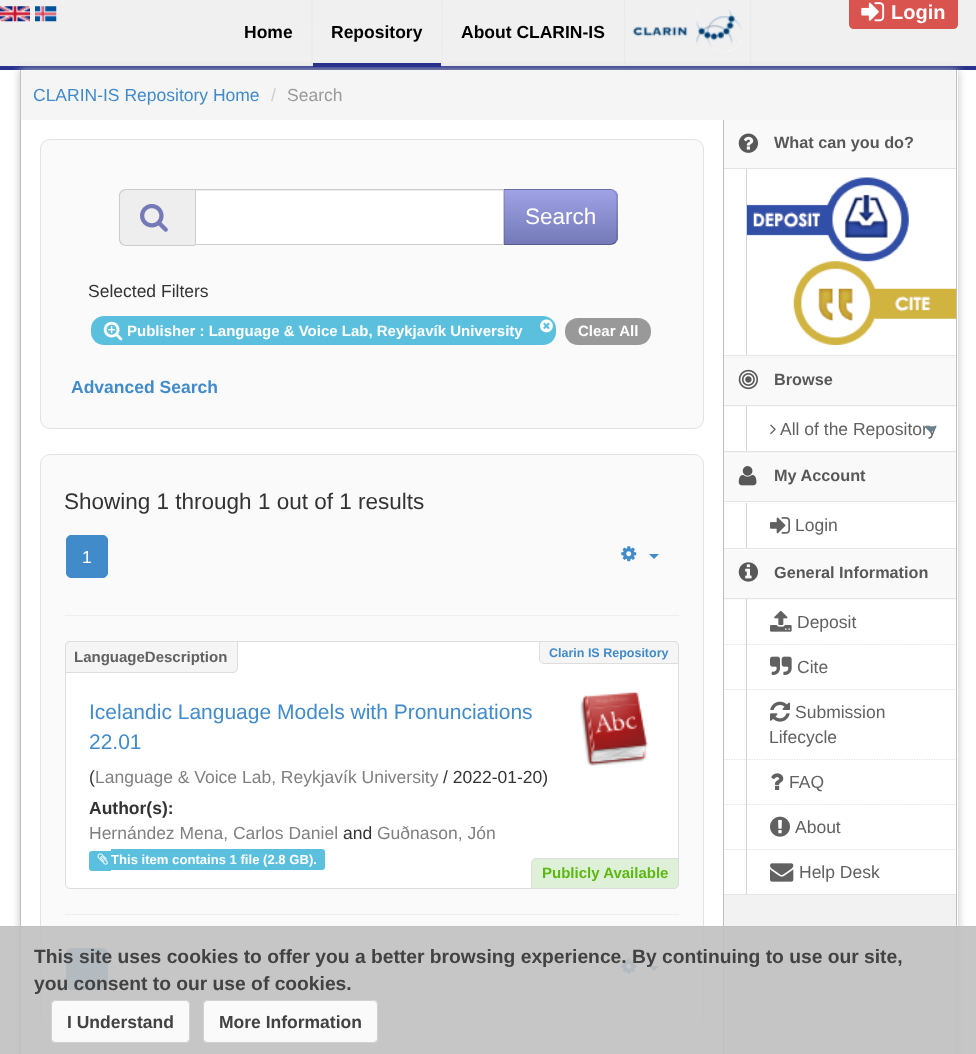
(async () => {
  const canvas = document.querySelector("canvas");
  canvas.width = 976;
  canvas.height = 1054;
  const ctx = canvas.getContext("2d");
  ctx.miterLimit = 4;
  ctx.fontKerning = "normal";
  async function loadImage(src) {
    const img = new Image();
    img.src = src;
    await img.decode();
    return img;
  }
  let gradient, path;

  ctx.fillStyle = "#ffffff";
  ctx.fillRect(0, 0, 976, 1054);
  ctx.fillStyle = "#f0f0f0";
  ctx.fillRect(0, 0, 976, 66);
  ctx.drawImage(await loadImage("img/1.png"), 0, 6, 30, 16);
  ctx.drawImage(await loadImage("img/2.png"), 35, 6, 22, 16);
  ctx.fillStyle = "#d9534f";
  path = new Path2D("M854-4H890V29H854C851 29 849 27 849 24V1C849-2 851-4 854-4Z");
  ctx.fill(path);
  path = new Path2D("M890-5H953C956-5 958-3 958 0V24C958 27 956 29 953 29H890Z");
  ctx.fill(path);
  ctx.drawImage(await loadImage("img/3.png"), 861, 2, 24, 20);
  ctx.fillStyle = "#29338e";
  ctx.fillRect(0, 66, 976, 4);
  ctx.fillStyle = "#c0c0c0";
  ctx.filter = "blur(4px)";
  ctx.beginPath();
  ctx.rect(20, 70, 938, 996);
  ctx.fill();
  ctx.filter = "none";
  path = new Path2D("M312 0V66");
  ctx.strokeStyle = "#e4e4e4";
  ctx.lineWidth = 1.2;
  ctx.setLineDash([1.25, 1.25]);
  ctx.stroke(path);
  path = new Path2D("M442 0V66");
  ctx.stroke(path);
  ctx.fillStyle = "#29338e";
  ctx.fillRect(313, 63, 128, 4);
  path = new Path2D("M624.5 0V66");
  ctx.stroke(path);
  path = new Path2D("M750.5 0V66");
  ctx.stroke(path);
  ctx.drawImage(await loadImage("img/4.png"), 632, 9, 110, 43);
  for (const [x, y, w, h, color] of [
    [21, 70, 937, 984, "#ffffff"],
    [956, 70, 1, 984, "#c0c0c0"],
    [20, 70, 1, 984, "#c0c0c0"],
    [21, 70, 935, 50, "#f5f5f5"],
    [724, 895, 232, 159, "#f2f2f2"],
    [723, 120, 1, 934, "#c0c0c0"],
  ]) {
    ctx.fillStyle = color;
    ctx.fillRect(x, y, w, h);
  }
  ctx.fillStyle = "#fafafa";
  ctx.beginPath();
  ctx.roundRect(40.5, 139.5, 663, 289, 9.5);
  ctx.fill();
  ctx.strokeStyle = "#e3e3e3";
  ctx.lineWidth = 1;
  ctx.setLineDash([]);
  ctx.stroke();
  ctx.fillStyle = "#eeeeee";
  ctx.beginPath();
  ctx.roundRect(119, 189, 76, 57, [8, 0, 0, 8]);
  ctx.fill();
  ctx.fillStyle = "#cccccc";
  path = new Path2D("M126 189H195V246H126C122 246 119 243 119 239V196C119 192 122 189 126 189ZM126 190H195V245H126C123 245 120 242 120 239V196C120 193 123 190 126 190Z");
  ctx.fill(path, "evenodd");
  ctx.drawImage(await loadImage("img/5.png"), 140, 203, 28, 29);
  ctx.fillStyle = "#ffffff";
  ctx.fillRect(196, 191, 307, 53);
  ctx.fillStyle = "#ececec";
  ctx.fillRect(196, 190, 307, 1);
  ctx.strokeStyle = "#cccccc";
  ctx.strokeRect(195.5, 189.5, 308, 55);
  ctx.fillStyle = "#7479b8";
  ctx.beginPath();
  ctx.roundRect(504, 189, 114, 56, [0, 8, 8, 0]);
  ctx.fill();
  ctx.save();
  ctx.beginPath();
  ctx.roundRect(504, 189, 114, 56, [0, 8, 8, 0]);
  ctx.clip();
  gradient = ctx.createLinearGradient(561, 190, 561, 244);
  gradient.addColorStop(0, "#9fa3e6");
  gradient.addColorStop(1, "#7479b8");
  ctx.fillStyle = gradient;
  ctx.fillRect(504, 190, 114, 54);
  ctx.restore();
  ctx.fillStyle = "rgba(0, 0, 0, 0.1)";
  path = new Path2D("M504 189L505 190H611L614 192L615 191C614 190 612 189 610 189Z");
  ctx.fill(path);
  path = new Path2D("M615 191L618 194V240L616 243L614 242C615 241 616 239 616 238V196C616 195 615 193 614 192Z");
  ctx.fill(path);
  ctx.fillStyle = "rgba(0, 0, 0, 0.25)";
  path = new Path2D("M504 245H610C612 245 614 244 616 243L614 242C613 243 612 244 610 244H505Z");
  ctx.fill(path);
  ctx.fillStyle = "rgba(0, 0, 0, 0.1)";
  path = new Path2D("M505 190L504 189V245L505 244Z");
  ctx.fill(path);
  ctx.fillStyle = "#5bc0de";
  ctx.beginPath();
  ctx.roundRect(91, 316, 465, 29, 13);
  ctx.fill();
  ctx.drawImage(await loadImage("img/6.png"), 103, 321, 20, 20);
  ctx.drawImage(await loadImage("img/7.png"), 540, 319, 13, 14);
  ctx.fillStyle = "#999999";
  ctx.beginPath();
  ctx.roundRect(565, 318, 86, 27, 13);
  ctx.fill();
  ctx.fillStyle = "#fafafa";
  ctx.beginPath();
  ctx.roundRect(40.5, 454.5, 663, 573, 9.5);
  ctx.fill();
  ctx.strokeStyle = "#e3e3e3";
  ctx.stroke();
  ctx.fillStyle = "#428bca";
  ctx.beginPath();
  ctx.roundRect(66.5, 535.5, 41, 42, 4.5);
  ctx.fill();
  ctx.strokeStyle = "#428bca";
  ctx.stroke();
  ctx.drawImage(await loadImage("img/8.png"), 621, 546, 16, 16);
  path = new Path2D("M649 554H659L654 559Z");
  ctx.fill(path);
  ctx.fillStyle = "#eeeeee";
  ctx.fillRect(65, 615, 614, 1);
  ctx.fillStyle = "#ffffff";
  ctx.beginPath();
  ctx.roundRect(65.5, 641.5, 613, 247, 4.5);
  ctx.fill();
  ctx.strokeStyle = "#dddddd";
  ctx.stroke();
  ctx.fillStyle = "#f5f5f5";
  ctx.beginPath();
  ctx.roundRect(65.5, 641.5, 172, 31, [4.5, 0, 4.5, 0]);
  ctx.fill();
  ctx.stroke();
  ctx.beginPath();
  ctx.roundRect(539.5, 641.5, 139, 22, [0, 4.5, 0, 4.5]);
  ctx.fill();
  ctx.stroke();
  ctx.drawImage(await loadImage("img/9.png"), 580, 692, 68, 74);
  ctx.fillStyle = "#5bc0de";
  ctx.beginPath();
  ctx.roundRect(89, 851, 22, 20, [3, 0, 0, 3]);
  ctx.fill();
  ctx.beginPath();
  ctx.roundRect(111, 849, 214, 21, [0, 3, 3, 0]);
  ctx.fill();
  ctx.drawImage(await loadImage("img/10.png"), 97, 853, 11, 12);
  ctx.fillStyle = "#dff0d8";
  ctx.beginPath();
  ctx.roundRect(531.5, 858.5, 147, 30, [4.5, 0, 4.5, 0]);
  ctx.fill();
  ctx.stroke();
  ctx.fillStyle = "#eeeeee";
  ctx.fillRect(65, 914, 614, 1);
  ctx.fillStyle = "#428bca";
  ctx.beginPath();
  ctx.roundRect(66.5, 948.5, 41, 41, 4.5);
  ctx.fill();
  ctx.strokeStyle = "#428bca";
  ctx.stroke();
  ctx.drawImage(await loadImage("img/11.png"), 621, 958, 16, 16);
  path = new Path2D("M649 966H659L654 971Z");
  ctx.fill(path);
  for (const [x, y, w, h, color] of [
    [724, 357, 232, 96, "#f2f2f2"],
    [724, 355, 232, 1, "#e5e5e5"],
    [724, 120, 232, 48, "#f9f9f9"],
  ]) {
    ctx.fillStyle = color;
    ctx.fillRect(x, y, w, h);
  }
  ctx.drawImage(await loadImage("img/12.png"), 738, 133, 20, 20);
  ctx.fillStyle = "#e5e5e5";
  ctx.fillRect(724, 168, 232, 1);
  ctx.fillStyle = "#ccd7e2";
  ctx.fillRect(746, 169, 1, 186);
  ctx.drawImage(await loadImage("img/13.png"), 747, 177, 162, 85);
  ctx.drawImage(await loadImage("img/14.png"), 793, 261, 164, 84);
  for (const [x, y, w, h, color] of [
    [724, 356, 232, 1, "#fcfcfc"],
    [724, 451, 232, 1, "#e5e5e5"],
    [724, 358, 232, 47, "#f9f9f9"],
  ]) {
    ctx.fillStyle = color;
    ctx.fillRect(x, y, w, h);
  }
  ctx.drawImage(await loadImage("img/15.png"), 738, 369, 20, 21);
  for (const [x, y, w, h, color] of [
    [724, 407, 232, 44, "#ffffff"],
    [724, 405, 232, 1, "#e5e5e5"],
    [724, 406, 232, 1, "#fafafa"],
    [746, 406, 1, 45, "#ccd7e2"],
  ]) {
    ctx.fillStyle = color;
    ctx.fillRect(x, y, w, h);
  }
  ctx.drawImage(await loadImage("img/16.png"), 770, 424, 6, 11);
  for (const [x, y, w, h, color] of [
    [724, 453, 232, 1, "#fcfcfc"],
    [724, 548, 232, 1, "#e5e5e5"],
    [724, 454, 232, 47, "#f9f9f9"],
  ]) {
    ctx.fillStyle = color;
    ctx.fillRect(x, y, w, h);
  }
  ctx.drawImage(await loadImage("img/18.png"), 738, 466, 19, 20);
  for (const [x, y, w, h, color] of [
    [724, 501, 232, 1, "#e5e5e5"],
    [724, 503, 232, 1, "#fafafa"],
    [746, 503, 1, 45, "#ccd7e2"],
  ]) {
    ctx.fillStyle = color;
    ctx.fillRect(x, y, w, h);
  }
  ctx.drawImage(await loadImage("img/19.png"), 770, 517, 20, 17);
  for (const [x, y, w, h, color] of [
    [724, 549, 232, 1, "#fcfcfc"],
    [724, 894, 232, 1, "#e5e5e5"],
    [724, 550, 232, 48, "#f9f9f9"],
  ]) {
    ctx.fillStyle = color;
    ctx.fillRect(x, y, w, h);
  }
  ctx.drawImage(await loadImage("img/20.png"), 738, 562, 20, 20);
  ctx.fillStyle = "#e5e5e5";
  ctx.fillRect(724, 598, 232, 1);
  ctx.fillStyle = "#fafafa";
  ctx.fillRect(724, 599, 232, 1);
  path = new Path2D("M724 644.5H956");
  ctx.strokeStyle = "#e4e4e4";
  ctx.lineWidth = 1.2;
  ctx.setLineDash([1.25, 1.25]);
  ctx.stroke(path);
  path = new Path2D("M724 689.5H956");
  ctx.stroke(path);
  path = new Path2D("M724 759.5H956");
  ctx.stroke(path);
  path = new Path2D("M724 804.5H956");
  ctx.stroke(path);
  path = new Path2D("M724 849.5H956");
  ctx.stroke(path);
  ctx.fillStyle = "#ccd7e2";
  ctx.fillRect(746, 599, 1, 295);
  ctx.drawImage(await loadImage("img/21.png"), 770, 610, 22, 22);
  ctx.drawImage(await loadImage("img/22.png"), 770, 656, 22, 19);
  ctx.drawImage(await loadImage("img/23.png"), 770, 701, 20, 21);
  ctx.drawImage(await loadImage("img/24.png"), 771, 773, 13, 17);
  ctx.drawImage(await loadImage("img/25.png"), 770, 816, 20, 21);
  ctx.drawImage(await loadImage("img/26.png"), 770, 863, 24, 19);
  ctx.fillStyle = "rgba(192, 192, 192, 0.9)";
  ctx.fillRect(0, 926, 976, 128);
  ctx.fillRect(0, 926, 976, 1);
  ctx.fillStyle = "rgba(255, 255, 255, 0.9)";
  ctx.beginPath();
  ctx.roundRect(51, 1000, 139, 43, 5);
  ctx.fill();
  ctx.beginPath();
  ctx.roundRect(51.5, 1000.5, 138, 42, 4.5);
  ctx.strokeStyle = "rgba(204, 204, 204, 0.9)";
  ctx.lineWidth = 1;
  ctx.setLineDash([]);
  ctx.stroke();
  ctx.beginPath();
  ctx.roundRect(203, 1000, 175, 43, 5);
  ctx.fill();
  ctx.beginPath();
  ctx.roundRect(203.5, 1000.5, 174, 42, 4.5);
  ctx.stroke();
  ctx.font = "bold 20px Liberation Sans";
  ctx.fillStyle = "#ffffff";
  ctx.fillText("Login", 891, 19);
  ctx.font = "bold 17.5px Liberation Sans";
  ctx.fillStyle = "#000000";
  for (const [text, x, y] of [
    ["Home", 244, 38],
    ["Repository", 331, 38],
    ["About CLARIN-IS", 461, 38],
  ]) {
    ctx.fillText(text, x, y);
  }
  ctx.font = "17.5px Liberation Sans";
  ctx.fillStyle = "#428bca";
  ctx.fillText("CLARIN-IS Repository Home", 33, 101);
  ctx.fillStyle = "#cccccc";
  ctx.fillText("/", 271, 101);
  ctx.fillStyle = "#999999";
  ctx.fillText("Search", 287, 101);
  ctx.font = "22.5px Liberation Sans";
  ctx.fillStyle = "#ffffff";
  ctx.fillText("Search", 525, 224);
  ctx.font = "17.5px Liberation Sans";
  ctx.fillStyle = "#333333";
  ctx.fillText("Selected Filters", 88, 297);
  ctx.font = "bold 15px Liberation Sans";
  ctx.fillStyle = "#ffffff";
  ctx.fillText("Publisher : Language & Voice Lab, Reykjavík University", 127, 336);
  ctx.fillText("Clear All", 578, 336);
  ctx.font = "bold 17.5px Liberation Sans";
  ctx.fillStyle = "#428bca";
  ctx.fillText("Advanced Search", 71, 393);
  ctx.font = "22.5px Liberation Sans";
  ctx.fillStyle = "#333333";
  ctx.fillText("Showing 1 through 1 out of 1 results", 64, 509);
  ctx.font = "17.5px Liberation Sans";
  ctx.fillStyle = "#ffffff";
  ctx.fillText("1", 82, 563);
  ctx.font = "bold 15px Liberation Sans";
  ctx.fillStyle = "#616161";
  ctx.fillText("LanguageDescription", 74, 662);
  ctx.font = "bold 12.5px Liberation Sans";
  ctx.fillStyle = "#428bca";
  ctx.fillText("Clarin IS Repository", 549, 657);
  ctx.font = "21px Liberation Sans";
  ctx.fillText("Icelandic Language Models with Pronunciations", 89, 719);
  ctx.fillText("22.01", 89, 749);
  ctx.font = "17.5px Liberation Sans";
  ctx.fillStyle = "#333333";
  ctx.fillText("(", 89, 783);
  ctx.fillStyle = "#808080";
  ctx.fillText("Language & Voice Lab, Reykjavík University", 95, 783);
  ctx.fillStyle = "#333333";
  ctx.fillText("/ 2022-01-20)", 443, 783);
  ctx.font = "bold 17.5px Liberation Sans";
  ctx.fillText("Author(s):", 89, 814);
  ctx.font = "17.5px Liberation Sans";
  ctx.fillStyle = "#808080";
  ctx.fillText("Hernández Mena, Carlos Daniel", 89, 839);
  ctx.fillStyle = "#333333";
  ctx.fillText("and", 343, 839);
  ctx.fillStyle = "#808080";
  ctx.fillText("Guðnason, Jón", 377, 839);
  ctx.font = "bold 13.1px Liberation Sans";
  ctx.fillStyle = "#ffffff";
  ctx.fillText("This item contains 1 file (2.8 GB).", 111, 864);
  ctx.font = "bold 15px Liberation Sans";
  ctx.fillStyle = "#5cb811";
  ctx.fillText("Publicly Available", 542, 878);
  ctx.font = "bold 16.25px Liberation Sans";
  ctx.fillStyle = "#585858";
  ctx.fillText("What can you do?", 774, 148);
  ctx.fillText("Browse", 774, 385);
  ctx.font = "17.5px Liberation Sans";
  ctx.fillStyle = "#616161";
  ctx.fillText("All of the Repository", 780, 435);
  ctx.drawImage(await loadImage("img/17.png"), 925, 426, 12, 7);
  ctx.font = "bold 16.25px Liberation Sans";
  ctx.fillStyle = "#585858";
  ctx.fillText("My Account", 774, 481);
  ctx.font = "17.5px Liberation Sans";
  ctx.fillStyle = "#616161";
  ctx.fillText("Login", 795, 531);
  ctx.font = "bold 16.25px Liberation Sans";
  ctx.fillStyle = "#585858";
  ctx.fillText("General Information", 774, 578);
  ctx.font = "17.5px Liberation Sans";
  ctx.fillStyle = "#616161";
  for (const [text, x, y] of [
    ["Deposit", 797, 628],
    ["Cite", 797, 673],
    ["Submission", 795, 718],
    ["Lifecycle", 769, 743],
    ["FAQ", 789, 788],
    ["About", 795, 833],
    ["Help Desk", 799, 878],
  ]) {
    ctx.fillText(text, x, y);
  }
  ctx.font = "bold 19.25px Liberation Sans";
  ctx.fillStyle = "#424242";
  ctx.fillText("This site uses cookies to offer you a better browsing experience. By continuing to use our site,", 34, 963);
  ctx.fillText("you consent to our use of cookies.", 34, 990);
  ctx.font = "bold 17.5px Liberation Sans";
  ctx.fillText("I Understand", 67, 1028);
  ctx.fillText("More Information", 219, 1028);
})();
